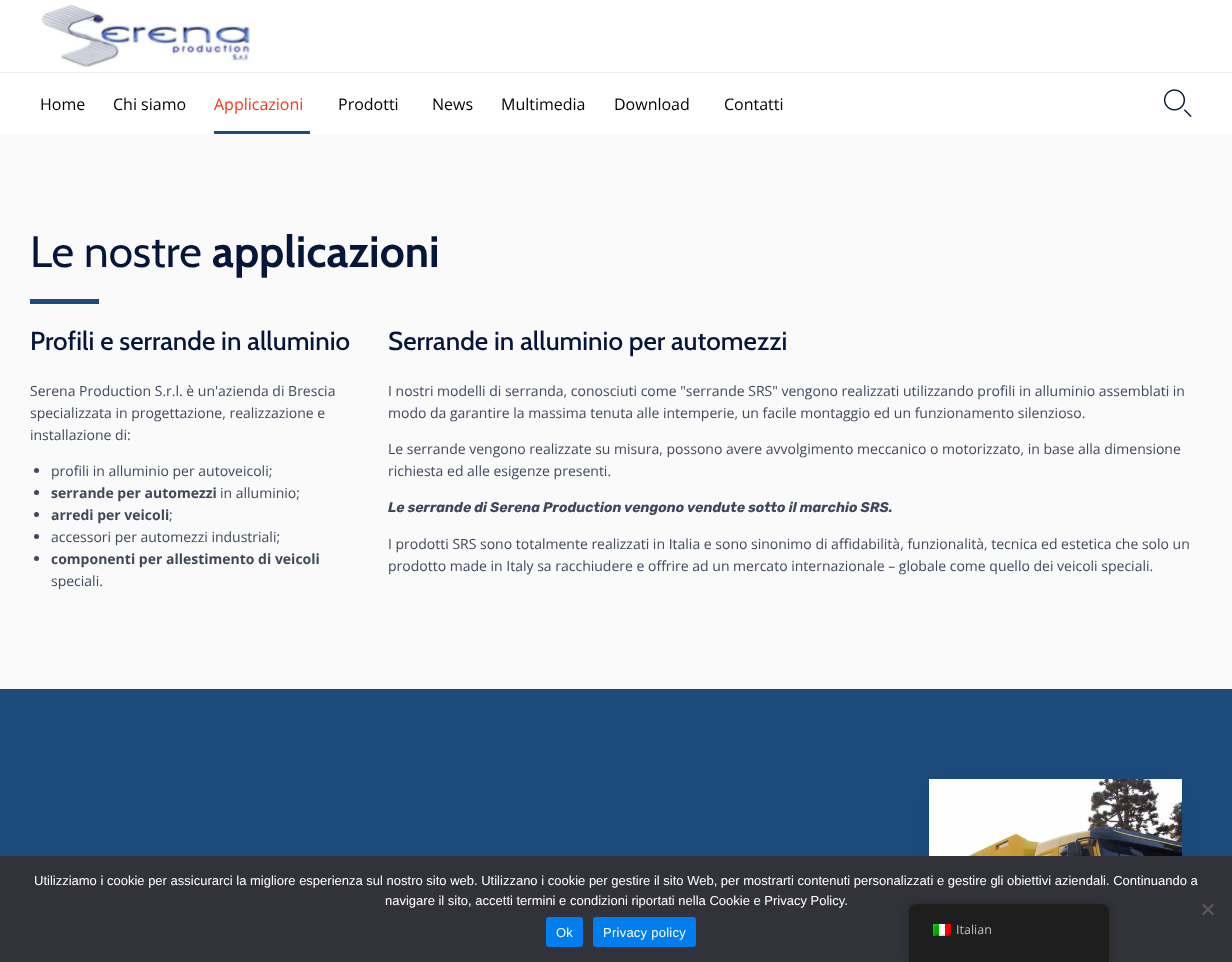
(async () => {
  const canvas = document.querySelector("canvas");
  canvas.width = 1232;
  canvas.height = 962;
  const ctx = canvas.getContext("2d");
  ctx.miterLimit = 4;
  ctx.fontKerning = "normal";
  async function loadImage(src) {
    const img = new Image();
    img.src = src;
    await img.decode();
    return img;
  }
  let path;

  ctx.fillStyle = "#ffffff";
  ctx.fillRect(0, 0, 1232, 962);
  ctx.drawImage(await loadImage("img/1.png"), 41, 4, 211, 64);
  ctx.fillStyle = "#ededed";
  ctx.fillRect(0, 72, 1232, 1);
  ctx.fillStyle = "#1c4b7c";
  ctx.fillRect(214, 131, 96, 3);
  ctx.drawImage(await loadImage("img/2.png"), 1163, 89, 29, 28);
  ctx.fillStyle = "#fafafa";
  ctx.fillRect(0, 135, 1232, 554);
  ctx.fillStyle = "#1c4b7c";
  ctx.fillRect(30, 299, 69, 5);
  ctx.fillStyle = "#3f485d";
  ctx.beginPath();
  ctx.arc(36.5, 470.5, 2.5, 0, Math.PI * 2);
  ctx.fill();
  ctx.beginPath();
  ctx.arc(36.5, 492.5, 2.5, 0, Math.PI * 2);
  ctx.fill();
  ctx.beginPath();
  ctx.arc(36.5, 514.5, 2.5, 0, Math.PI * 2);
  ctx.fill();
  ctx.beginPath();
  ctx.arc(36.5, 536.5, 2.5, 0, Math.PI * 2);
  ctx.fill();
  ctx.beginPath();
  ctx.arc(36.5, 558.5, 2.5, 0, Math.PI * 2);
  ctx.fill();
  ctx.fillStyle = "#1c4b7c";
  ctx.fillRect(0, 689, 1232, 167);
  ctx.fillStyle = "rgba(0, 0, 0, 0.05)";
  ctx.filter = "blur(15px)";
  ctx.beginPath();
  ctx.rect(929, 784, 253, 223);
  ctx.fill();
  ctx.filter = "none";
  ctx.drawImage(await loadImage("img/3.png"), 929, 779, 253, 77);
  ctx.fillStyle = "#32323a";
  ctx.fillRect(0, 856, 1232, 106);
  ctx.fillStyle = "#59595d";
  path = new Path2D("M1212.5 903.5L1214 905L1203.5 915.5L1202 914Z");
  ctx.fill(path);
  path = new Path2D("M1202 905L1203.5 903.5L1214 914L1212.5 915.5Z");
  ctx.fill(path);
  ctx.fillStyle = "#007eed";
  ctx.beginPath();
  ctx.roundRect(546, 917, 37, 30, 3);
  ctx.fill();
  ctx.beginPath();
  ctx.roundRect(593, 917, 103, 30, 3);
  ctx.fill();
  ctx.fillStyle = "rgba(0, 0, 0, 0.25)";
  ctx.filter = "blur(4px)";
  ctx.beginPath();
  ctx.roundRect(909, 904, 200, 58, 8);
  ctx.fill();
  ctx.filter = "none";
  ctx.fillStyle = "#1e1e1e";
  ctx.beginPath();
  ctx.roundRect(909, 904, 200, 58, [8, 8, 0, 0]);
  ctx.fill();
  ctx.drawImage(await loadImage("img/4.png"), 933, 924, 18, 12);
  ctx.font = "16px Open Sans";
  ctx.fillStyle = "#000000";
  ctx.fillText("Home", 40, 110);
  ctx.fillText("Chi siamo", 113, 110);
  ctx.fillStyle = "#ff3514";
  ctx.fillText("Applicazioni", 214, 110);
  ctx.fillStyle = "#000000";
  for (const [text, x, y] of [
    ["Prodotti", 338, 110],
    ["News", 432, 110],
    ["Multimedia", 501, 110],
    ["Download", 614, 110],
    ["Contatti", 724, 110],
  ]) {
    ctx.fillText(text, x, y);
  }
  ctx.font = "44px Cabin";
  ctx.fillStyle = "#06163a";
  ctx.fillText("Le nostre", 30, 267);
  ctx.font = "bold 44px Cabin";
  ctx.fillText("applicazioni", 212, 267);
  ctx.font = "500 26px Cabin";
  ctx.fillText("Profili e serrande in alluminio", 30, 350);
  ctx.font = "14px Open Sans";
  ctx.fillStyle = "#3f485d";
  for (const [text, x, y] of [
    ["Serena Production S.r.l. è un'azienda di Brescia", 30, 396],
    ["specializzata in progettazione, realizzazione e", 30, 418],
    ["installazione di:", 30, 440],
    ["profili in alluminio per autoveicoli;", 51, 476],
  ]) {
    ctx.fillText(text, x, y);
  }
  ctx.font = "bold 14px Open Sans";
  ctx.fillText("serrande per automezzi", 51, 498);
  ctx.font = "14px Open Sans";
  ctx.fillText("in alluminio;", 220, 498);
  ctx.font = "bold 14px Open Sans";
  ctx.fillText("arredi per veicoli", 51, 520);
  ctx.font = "14px Open Sans";
  ctx.fillText(";", 169, 520);
  ctx.fillText("accessori per automezzi industriali;", 51, 542);
  ctx.font = "bold 14px Open Sans";
  ctx.fillText("componenti per allestimento di veicoli", 51, 564);
  ctx.font = "14px Open Sans";
  ctx.fillText("speciali.", 51, 586);
  ctx.font = "500 26px Cabin";
  ctx.fillStyle = "#06163a";
  ctx.fillText("Serrande in alluminio per automezzi", 388, 350);
  ctx.font = "14px Open Sans";
  ctx.fillStyle = "#3f485d";
  for (const [text, x, y] of [
    ["I nostri modelli di serranda, conosciuti come \"serrande SRS\" vengono realizzati utilizzando profili in alluminio assemblati in", 388, 396],
    ["modo da garantire la massima tenuta alle intemperie, un facile montaggio ed un funzionamento silenzioso.", 388, 418],
    ["Le serrande vengono realizzate su misura, possono avere avvolgimento meccanico o motorizzato, in base alla dimensione", 388, 454],
    ["richiesta ed alle esigenze presenti.", 388, 476],
  ]) {
    ctx.fillText(text, x, y);
  }
  ctx.font = "italic bold 14px Rubik";
  ctx.fillText("Le serrande di Serena Production vengono vendute sotto il marchio SRS.", 388, 512);
  ctx.font = "14px Open Sans";
  ctx.fillText("I prodotti SRS sono totalmente realizzati in Italia e sono sinonimo di affidabilità, funzionalità, tecnica ed estetica che solo un", 388, 549);
  ctx.fillText("prodotto made in Italy sa racchiudere e offrire ad un mercato internazionale – globale come quello dei veicoli speciali.", 388, 571);
  ctx.font = "13px Liberation Sans";
  ctx.fillStyle = "#ffffff";
  ctx.fillText("Utilizziamo i cookie per assicurarci la migliore esperienza sul nostro sito web. Utilizzano i cookie per gestire il sito Web, per mostrarti contenuti personalizzati e gestire gli obiettivi aziendali. Continuando a", 34, 885);
  ctx.fillText("navigare il sito, accetti termini e condizioni riportati nella Cookie e Privacy Policy.", 385, 905);
  ctx.letterSpacing = "0.25px";
  ctx.fillText("Ok", 556, 937);
  ctx.fillText("Privacy policy", 603, 937);
  ctx.letterSpacing = "0px";
  ctx.font = "12.5px Open Sans";
  ctx.fillStyle = "#bdbdbd";
  ctx.fillText("Italian", 956, 934);
})();
